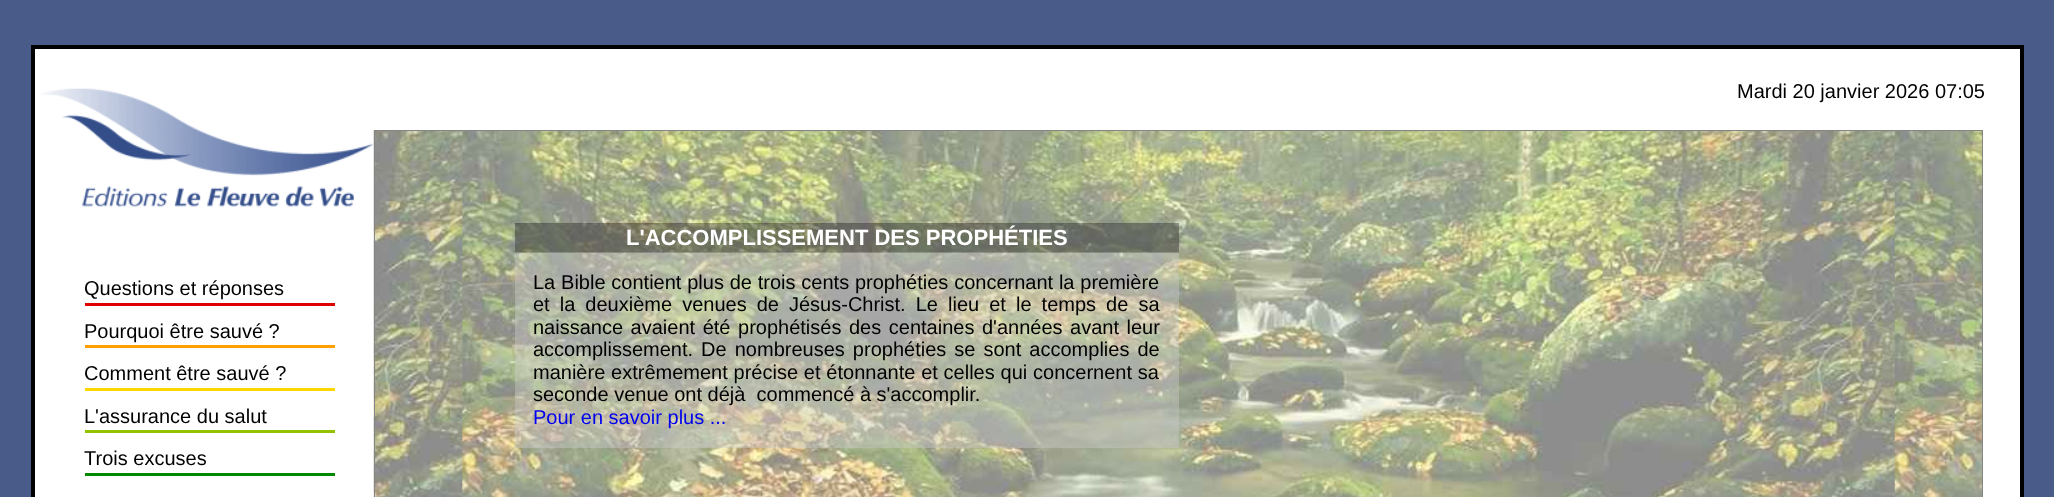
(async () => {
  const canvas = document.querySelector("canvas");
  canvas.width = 2054;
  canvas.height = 497;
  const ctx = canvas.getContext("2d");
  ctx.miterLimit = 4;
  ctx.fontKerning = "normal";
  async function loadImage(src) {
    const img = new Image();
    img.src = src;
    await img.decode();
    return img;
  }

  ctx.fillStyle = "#485b89";
  ctx.fillRect(0, 0, 2054, 497);
  ctx.fillStyle = "#ffffff";
  ctx.beginPath();
  ctx.rect(33, 47, 1989, 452);
  ctx.fill();
  ctx.strokeStyle = "#000000";
  ctx.lineWidth = 4;
  ctx.stroke();
  ctx.drawImage(await loadImage("img/1.png"), 40, 88, 334, 119);
  for (const [x, y, w, h, color] of [
    [85, 303, 250, 3, "#df0000"],
    [85, 345, 250, 3, "#ffa000"],
    [85, 388, 250, 3, "#ffd700"],
    [85, 430, 250, 3, "#93c200"],
    [85, 473, 250, 3, "#008800"],
  ]) {
    ctx.fillStyle = color;
    ctx.fillRect(x, y, w, h);
  }
  ctx.drawImage(await loadImage("img/2.png"), 373, 130, 1609, 367);
  ctx.strokeStyle = "#848686";
  ctx.lineWidth = 1;
  ctx.strokeRect(374.5, 130.5, 1608, 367);
  for (const [x, y, w, h, color] of [
    [515, 224, 664, 224, "rgba(203, 203, 203, 0.15)"],
    [515, 223, 664, 30, "rgba(0, 0, 0, 0.33)"],
    [515, 252, 664, 196, "rgba(203, 203, 203, 0.33)"],
  ]) {
    ctx.fillStyle = color;
    ctx.fillRect(x, y, w, h);
  }
  ctx.font = "20px Liberation Sans";
  ctx.fillStyle = "#000000";
  for (const [text, x, y] of [
    ["Mardi 20 janvier 2026 07:05", 1737, 98],
    ["Questions et réponses", 84, 295],
    ["Pourquoi être sauvé ?", 84, 338],
    ["Comment être sauvé ?", 84, 380],
    ["L'assurance du salut", 84, 423],
    ["Trois excuses", 84, 465],
  ]) {
    ctx.fillText(text, x, y);
  }
  ctx.font = "bold 22px Liberation Sans";
  ctx.fillStyle = "#ffffff";
  ctx.fillText("L'ACCOMPLISSEMENT DES PROPHÉTIES", 626, 245);
  ctx.wordSpacing = "0.25px";
  ctx.font = "20px Liberation Sans";
  ctx.fillStyle = "#000000";
  ctx.fillText("La Bible contient plus de trois cents prophéties concernant la première", 533, 289);
  ctx.wordSpacing = "4.5px";
  ctx.fillText("et la deuxième venues de Jésus-Christ. Le lieu et le temps de sa", 533, 311);
  ctx.wordSpacing = "2px";
  ctx.fillText("naissance avaient été prophétisés des centaines d'années avant leur", 533, 334);
  ctx.wordSpacing = "2.5px";
  ctx.fillText("accomplissement. De nombreuses prophéties se sont accomplies de", 533, 356);
  ctx.wordSpacing = "0.25px";
  ctx.fillText("manière extrêmement précise et étonnante et celles qui concernent sa", 533, 379);
  ctx.wordSpacing = "0px";
  ctx.fillText("seconde venue ont déjà  commencé à s'accomplir.", 533, 401);
  ctx.fillStyle = "#0000ee";
  ctx.fillText("Pour en savoir plus ...", 533, 424);
})();
